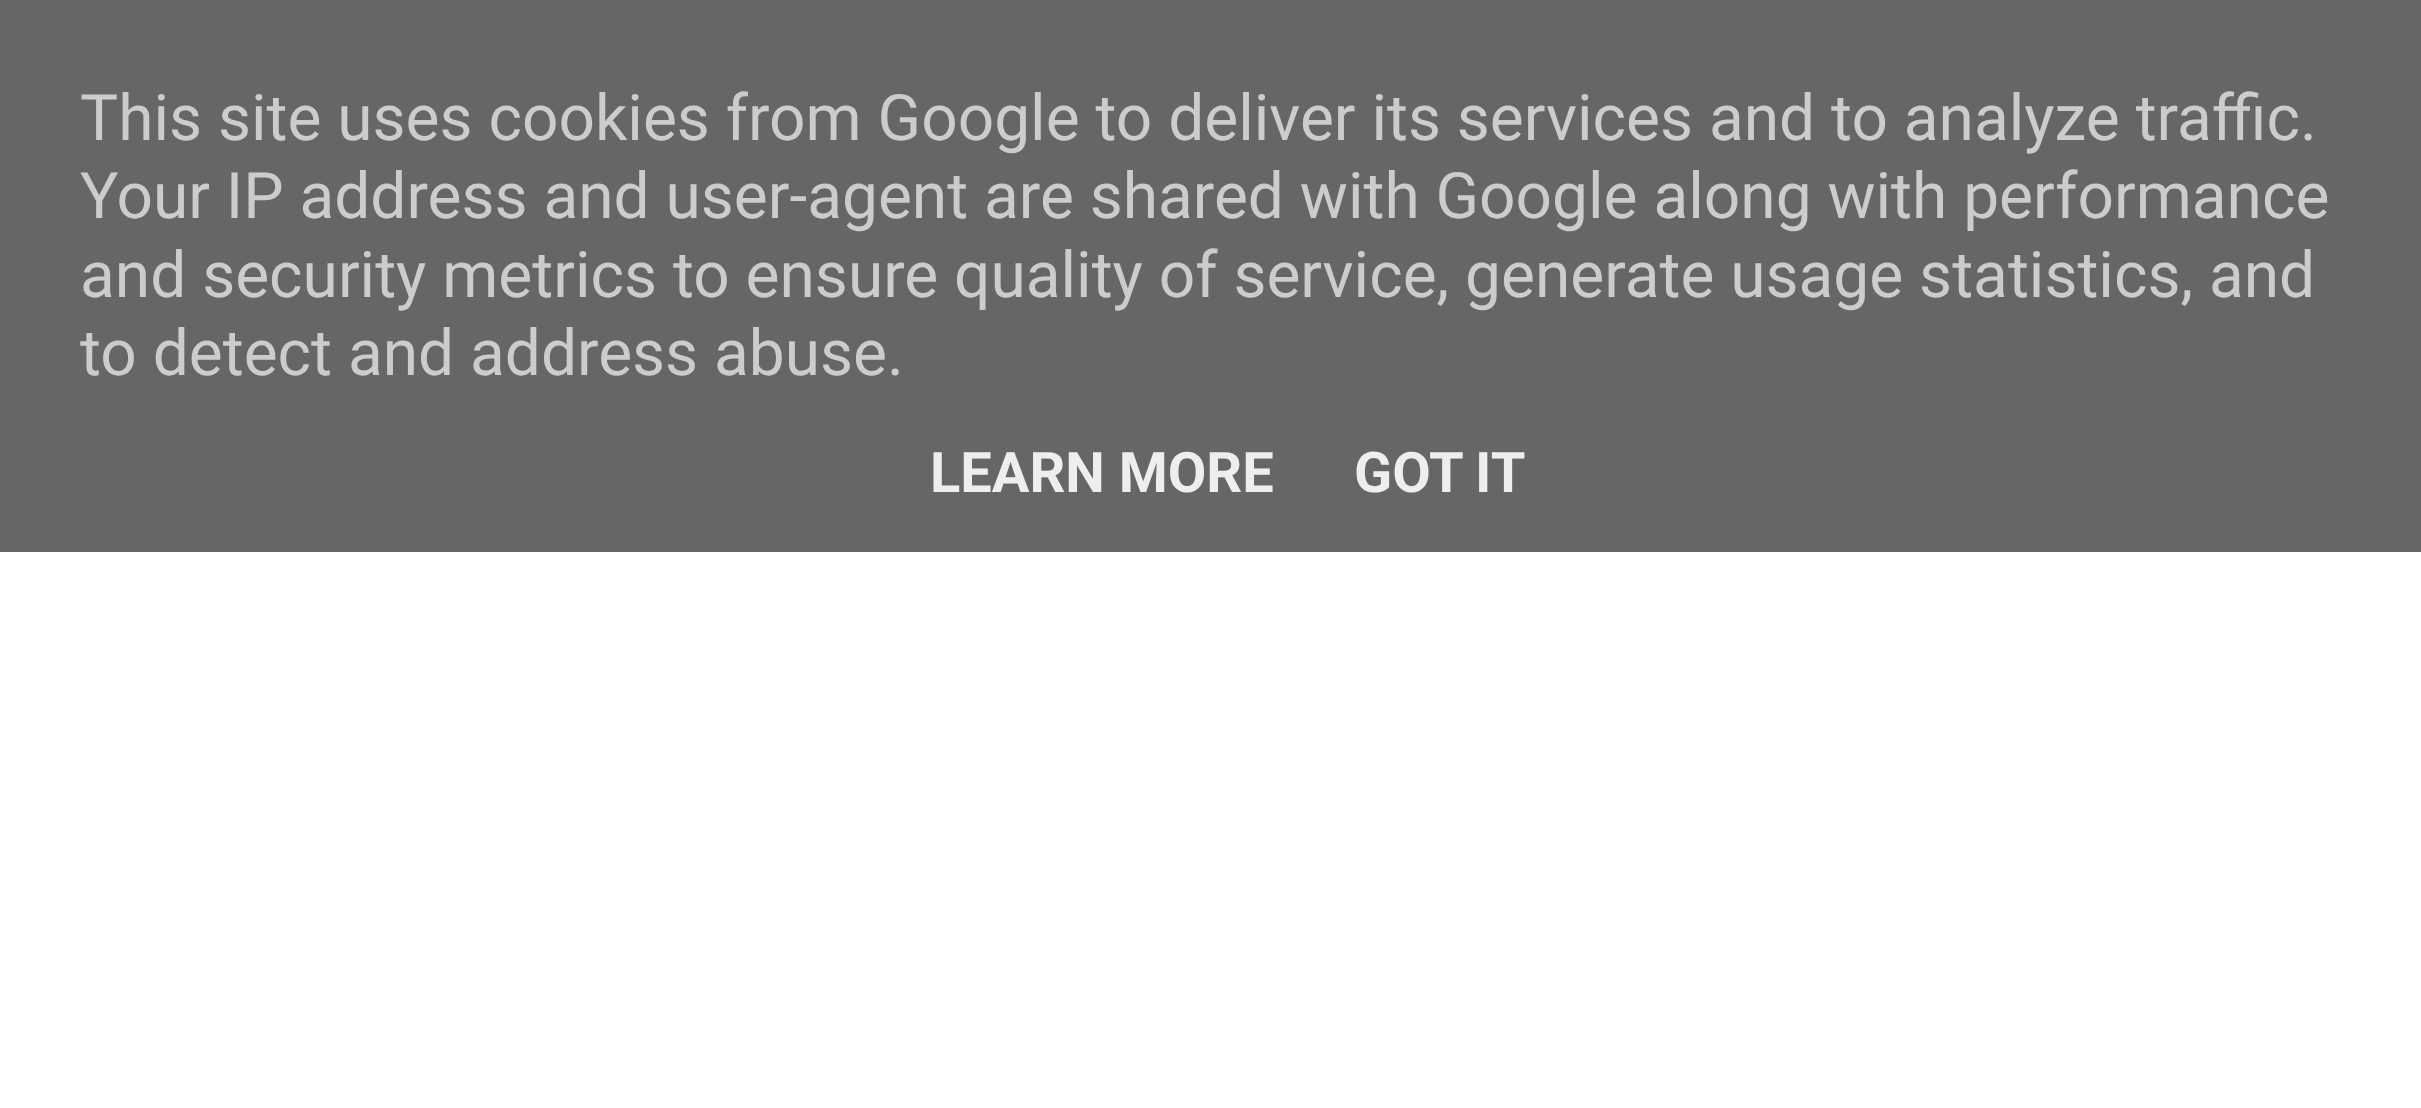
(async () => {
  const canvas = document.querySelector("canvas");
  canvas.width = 2421;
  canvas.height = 1108;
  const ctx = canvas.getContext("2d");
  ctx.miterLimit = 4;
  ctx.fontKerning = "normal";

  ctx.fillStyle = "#ffffff";
  ctx.fillRect(0, 0, 2421, 1108);
  ctx.fillStyle = "#666666";
  ctx.fillRect(0, 0, 2421, 552);
  ctx.font = "64px Roboto";
  ctx.fillStyle = "#cccccc";
  for (const [text, x, y] of [
    ["This site uses cookies from Google to deliver its services and to analyze traffic.", 80, 140],
    ["Your IP address and user-agent are shared with Google along with performance", 80, 218],
    ["and security metrics to ensure quality of service, generate usage statistics, and", 80, 297],
    ["to detect and address abuse.", 80, 375],
  ]) {
    ctx.fillText(text, x, y);
  }
  ctx.font = "bold 56px Roboto";
  ctx.fillStyle = "#eeeeee";
  ctx.fillText("LEARN MORE", 930, 492);
  ctx.wordSpacing = "-1px";
  ctx.fillText("GOT IT", 1354, 492);
})();
